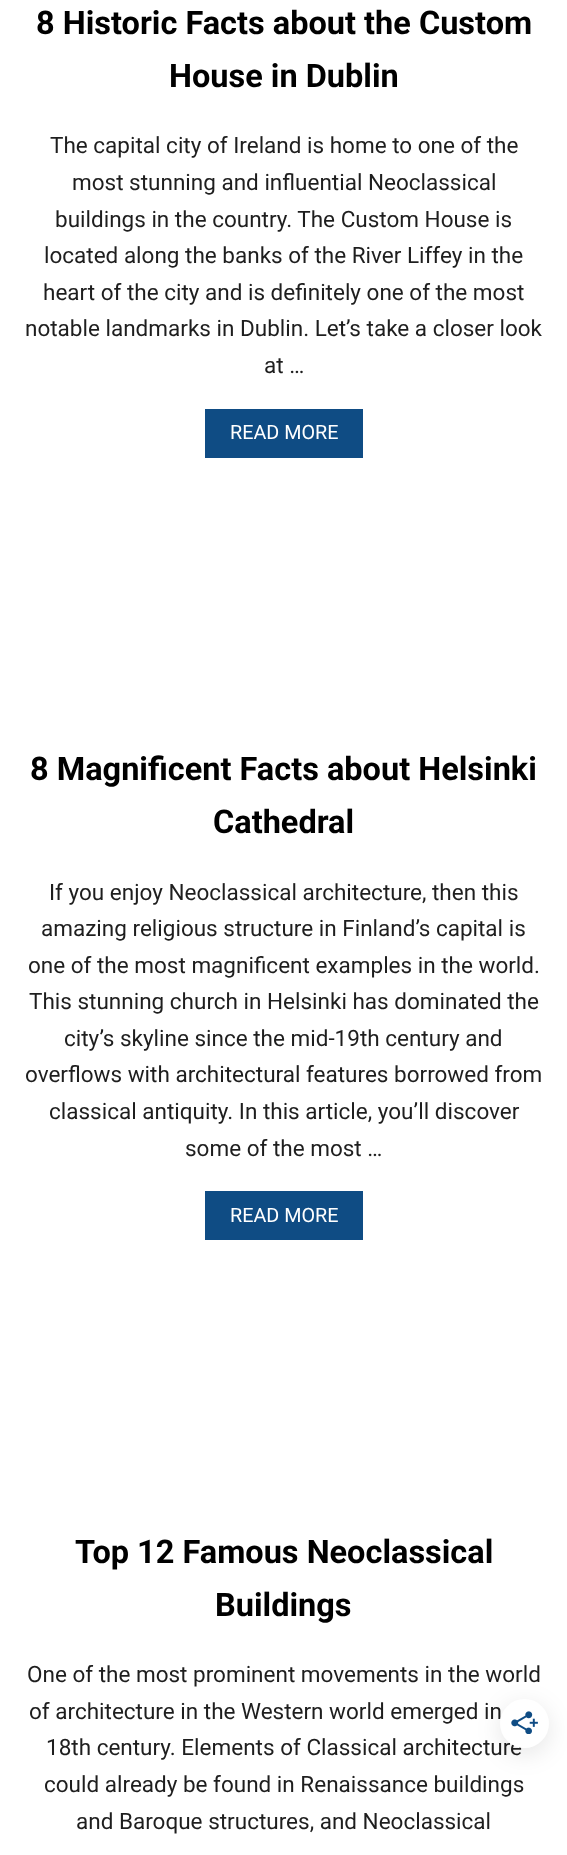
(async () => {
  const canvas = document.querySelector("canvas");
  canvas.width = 567;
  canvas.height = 1855;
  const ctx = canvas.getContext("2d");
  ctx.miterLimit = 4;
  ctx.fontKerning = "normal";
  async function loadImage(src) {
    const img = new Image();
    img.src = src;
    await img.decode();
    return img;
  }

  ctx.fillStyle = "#ffffff";
  ctx.fillRect(0, 0, 567, 1855);
  ctx.fillStyle = "#0f4c84";
  ctx.fillRect(205, 409, 158, 49);
  ctx.fillRect(205, 1191, 158, 49);
  ctx.fillStyle = "rgba(0, 0, 0, 0.1)";
  ctx.filter = "blur(12.5px)";
  ctx.beginPath();
  ctx.roundRect(500, 1705, 49, 49, 24.5);
  ctx.fill();
  ctx.filter = "none";
  ctx.font = "bold 32.5px Roboto";
  ctx.fillStyle = "#000000";
  ctx.fillText("8 Historic Facts about the Custom", 36, 34);
  ctx.fillText("House in Dublin", 169, 87);
  ctx.font = "22.5px Roboto";
  ctx.fillStyle = "#1e1e1e";
  for (const [text, x, y] of [
    ["The capital city of Ireland is home to one of the", 50, 153],
    ["most stunning and influential Neoclassical", 72, 190],
    ["buildings in the country. The Custom House is", 55, 227],
    ["located along the banks of the River Liffey in the", 44, 263],
    ["heart of the city and is definitely one of the most", 43, 300],
    ["notable landmarks in Dublin. Let’s take a closer look", 25, 336],
    ["at …", 264, 373],
  ]) {
    ctx.fillText(text, x, y);
  }
  ctx.font = "19.75px Roboto";
  ctx.fillStyle = "#ffffff";
  ctx.fillText("READ MORE", 230, 439);
  ctx.font = "bold 32.5px Roboto";
  ctx.fillStyle = "#000000";
  ctx.fillText("8 Magnificent Facts about Helsinki", 30, 780);
  ctx.fillText("Cathedral", 213, 833);
  ctx.font = "22.5px Roboto";
  ctx.fillStyle = "#1e1e1e";
  for (const [text, x, y] of [
    ["If you enjoy Neoclassical architecture, then this", 49, 900],
    ["amazing religious structure in Finland’s capital is", 41, 936],
    ["one of the most magnificent examples in the world.", 28, 973],
    ["This stunning church in Helsinki has dominated the", 29, 1009],
    ["city’s skyline since the mid-19th century and", 64, 1046],
    ["overflows with architectural features borrowed from", 25, 1082],
    ["classical antiquity. In this article, you’ll discover", 49, 1119],
    ["some of the most …", 185, 1156],
  ]) {
    ctx.fillText(text, x, y);
  }
  ctx.font = "19.75px Roboto";
  ctx.fillStyle = "#ffffff";
  ctx.fillText("READ MORE", 230, 1222);
  ctx.font = "bold 32.5px Roboto";
  ctx.fillStyle = "#000000";
  ctx.fillText("Top 12 Famous Neoclassical", 75, 1563);
  ctx.fillText("Buildings", 215, 1616);
  ctx.font = "22.5px Roboto";
  ctx.fillStyle = "#1e1e1e";
  for (const [text, x, y] of [
    ["One of the most prominent movements in the world", 27, 1682],
    ["of architecture in the Western world emerged in", 29, 1719],
    ["18th century. Elements of Classical architecture", 46, 1755],
    ["could already be found in Renaissance buildings", 44, 1792],
    ["and Baroque structures, and Neoclassical", 76, 1829],
  ]) {
    ctx.fillText(text, x, y);
  }
  ctx.fillStyle = "#ffffff";
  ctx.beginPath();
  ctx.arc(524.5, 1723.5, 24.5, 0, Math.PI * 2);
  ctx.fill();
  ctx.drawImage(await loadImage("img/1.png"), 511, 1711, 27, 23);
})();
